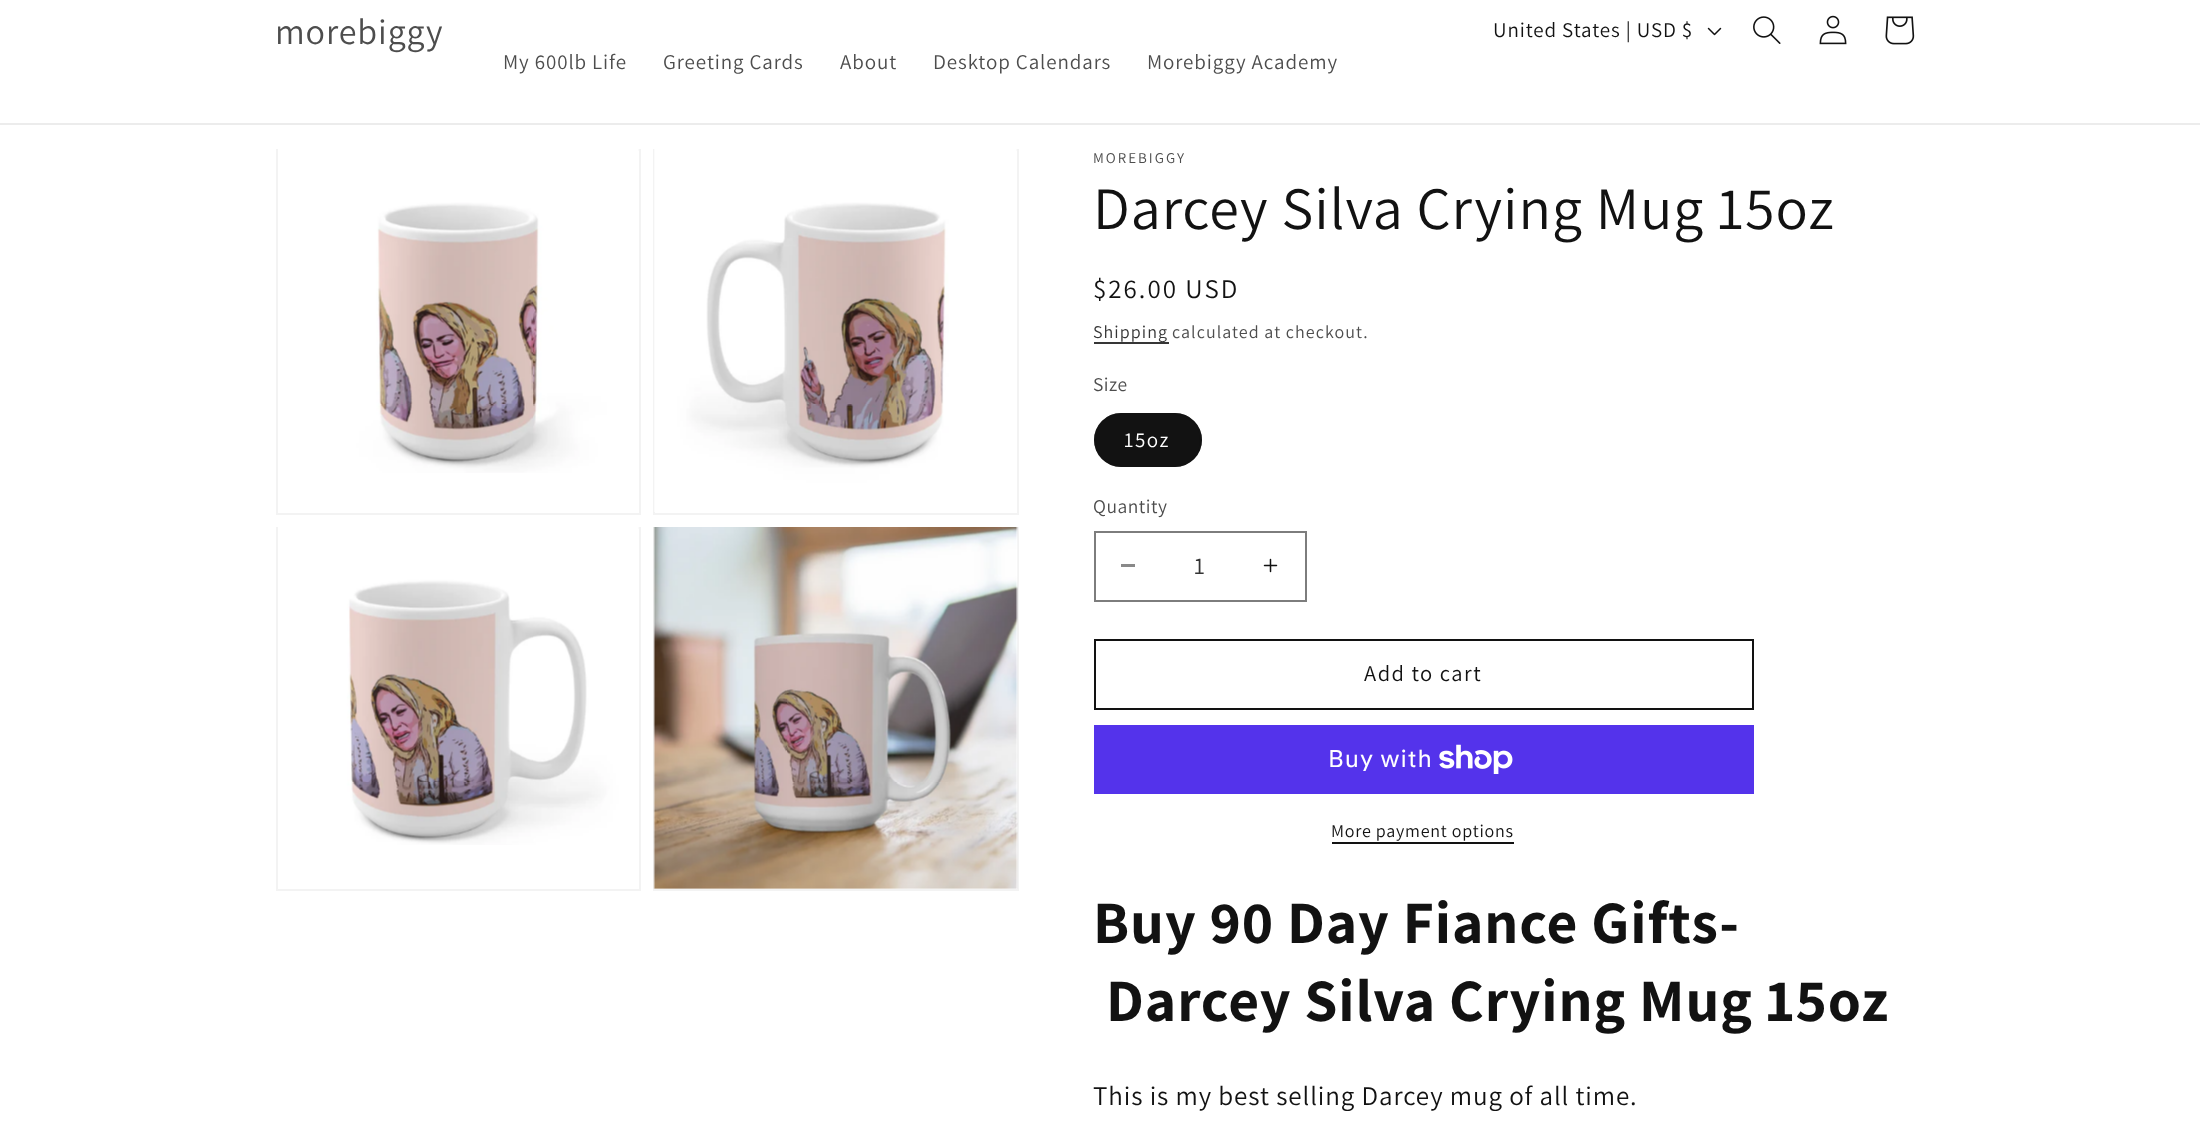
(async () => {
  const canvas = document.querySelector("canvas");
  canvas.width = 2200;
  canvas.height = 1128;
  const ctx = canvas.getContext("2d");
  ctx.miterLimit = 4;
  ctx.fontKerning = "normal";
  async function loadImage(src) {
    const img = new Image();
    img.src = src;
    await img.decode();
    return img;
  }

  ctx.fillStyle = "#ffffff";
  ctx.fillRect(0, 0, 2200, 1128);
  ctx.fillStyle = "#ececec";
  ctx.fillRect(0, 123, 2200, 2);
  ctx.drawImage(await loadImage("img/1.png"), 1707, 27, 15, 9);
  ctx.drawImage(await loadImage("img/2.png"), 1753, 16, 28, 28);
  ctx.drawImage(await loadImage("img/3.png"), 1819, 15, 28, 30);
  ctx.drawImage(await loadImage("img/4.png"), 1885, 16, 30, 29);
  ctx.strokeStyle = "#f3f3f3";
  ctx.lineWidth = 2;
  ctx.strokeRect(277, 150, 363, 364);
  ctx.drawImage(await loadImage("img/5.png"), 278, 149, 361, 324);
  ctx.strokeRect(654, 150, 364, 364);
  ctx.drawImage(await loadImage("img/6.png"), 654, 149, 363, 363);
  ctx.strokeRect(277, 528, 363, 362);
  ctx.drawImage(await loadImage("img/7.png"), 278, 527, 361, 318);
  ctx.strokeRect(654, 528, 364, 362);
  ctx.drawImage(await loadImage("img/8.png"), 653, 527, 365, 362);
  ctx.fillStyle = "#363636";
  ctx.fillRect(1094, 342, 75, 2);
  ctx.fillStyle = "#121212";
  ctx.beginPath();
  ctx.roundRect(1094, 413, 108, 54, 27);
  ctx.fill();
  ctx.beginPath();
  ctx.roundRect(1095, 414, 106, 52, 26);
  ctx.strokeStyle = "rgba(18, 18, 18, 0.55)";
  ctx.stroke();
  ctx.fillStyle = "#898989";
  ctx.fillRect(1121, 564, 14, 3);
  ctx.drawImage(await loadImage("img/9.png"), 1263, 558, 15, 15);
  ctx.strokeStyle = "#7d7d7d";
  ctx.strokeRect(1095, 532, 211, 69);
  ctx.strokeStyle = "#121212";
  ctx.strokeRect(1095, 640, 658, 69);
  ctx.fillStyle = "#5433eb";
  ctx.fillRect(1094, 725, 660, 69);
  ctx.drawImage(await loadImage("img/10.png"), 1439, 744, 74, 30);
  ctx.fillStyle = "#121212";
  ctx.fillRect(1332, 842, 182, 2);
  ctx.letterSpacing = "0.9px";
  ctx.font = "36px Assistant";
  ctx.fillStyle = "#4d4d4d";
  ctx.fillText("morebiggy", 275, 44);
  ctx.font = "21px Assistant";
  ctx.fillStyle = "#121212";
  ctx.fillText("United States | USD $", 1493, 37);
  ctx.fillStyle = "#4d4d4d";
  for (const [text, x, y] of [
    ["My 600lb Life", 503, 69],
    ["Greeting Cards", 663, 69],
    ["About", 840, 69],
    ["Desktop Calendars", 933, 69],
    ["Morebiggy Academy", 1147, 69],
  ]) {
    ctx.fillText(text, x, y);
  }
  ctx.letterSpacing = "2px";
  ctx.font = "15px Assistant";
  ctx.fillText("MOREBIGGY", 1093, 163);
  ctx.letterSpacing = "0.9px";
  ctx.font = "60px Assistant";
  ctx.fillStyle = "#121212";
  ctx.fillText("Darcey Silva Crying Mug 15oz", 1093, 229);
  ctx.letterSpacing = "2px";
  ctx.font = "27px Assistant";
  ctx.fillText("$26.00 USD", 1093, 298);
  ctx.letterSpacing = "1.05px";
  ctx.font = "18px Assistant";
  ctx.fillStyle = "#353535";
  ctx.fillText("Shipping", 1093, 338);
  ctx.fillStyle = "#4d4d4d";
  ctx.fillText("calculated at checkout.", 1172, 338);
  ctx.letterSpacing = "0.5px";
  ctx.font = "19.5px Assistant";
  ctx.fillText("Size", 1093, 391);
  ctx.letterSpacing = "1.5px";
  ctx.font = "21px Assistant";
  ctx.fillStyle = "#ffffff";
  ctx.fillText("15oz", 1124, 447);
  ctx.letterSpacing = "0.5px";
  ctx.font = "19.5px Assistant";
  ctx.fillStyle = "#4d4d4d";
  ctx.fillText("Quantity", 1093, 513);
  ctx.letterSpacing = "0px";
  ctx.font = "24px Assistant";
  ctx.fillStyle = "#353535";
  ctx.fillText("1", 1194, 574);
  ctx.letterSpacing = "1.5px";
  ctx.font = "22.5px Assistant";
  ctx.fillStyle = "#121212";
  ctx.fillText("Add to cart", 1364, 681);
  ctx.letterSpacing = "0.9px";
  ctx.font = "24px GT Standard";
  ctx.fillStyle = "#ffffff";
  ctx.fillText("Buy with", 1328, 767);
  ctx.letterSpacing = "0.75px";
  ctx.font = "18px Assistant";
  ctx.fillStyle = "#121212";
  ctx.fillText("More payment options", 1331, 837);
  ctx.letterSpacing = "0.9px";
  ctx.font = "bold 60px Assistant";
  ctx.fillText("Buy 90 Day Fiance Gifts-", 1093, 943);
  ctx.fillText("Darcey Silva Crying Mug 15oz", 1106, 1021);
  ctx.font = "27px Assistant";
  ctx.fillText("This is my best selling Darcey mug of all time.", 1093, 1105);
})();
